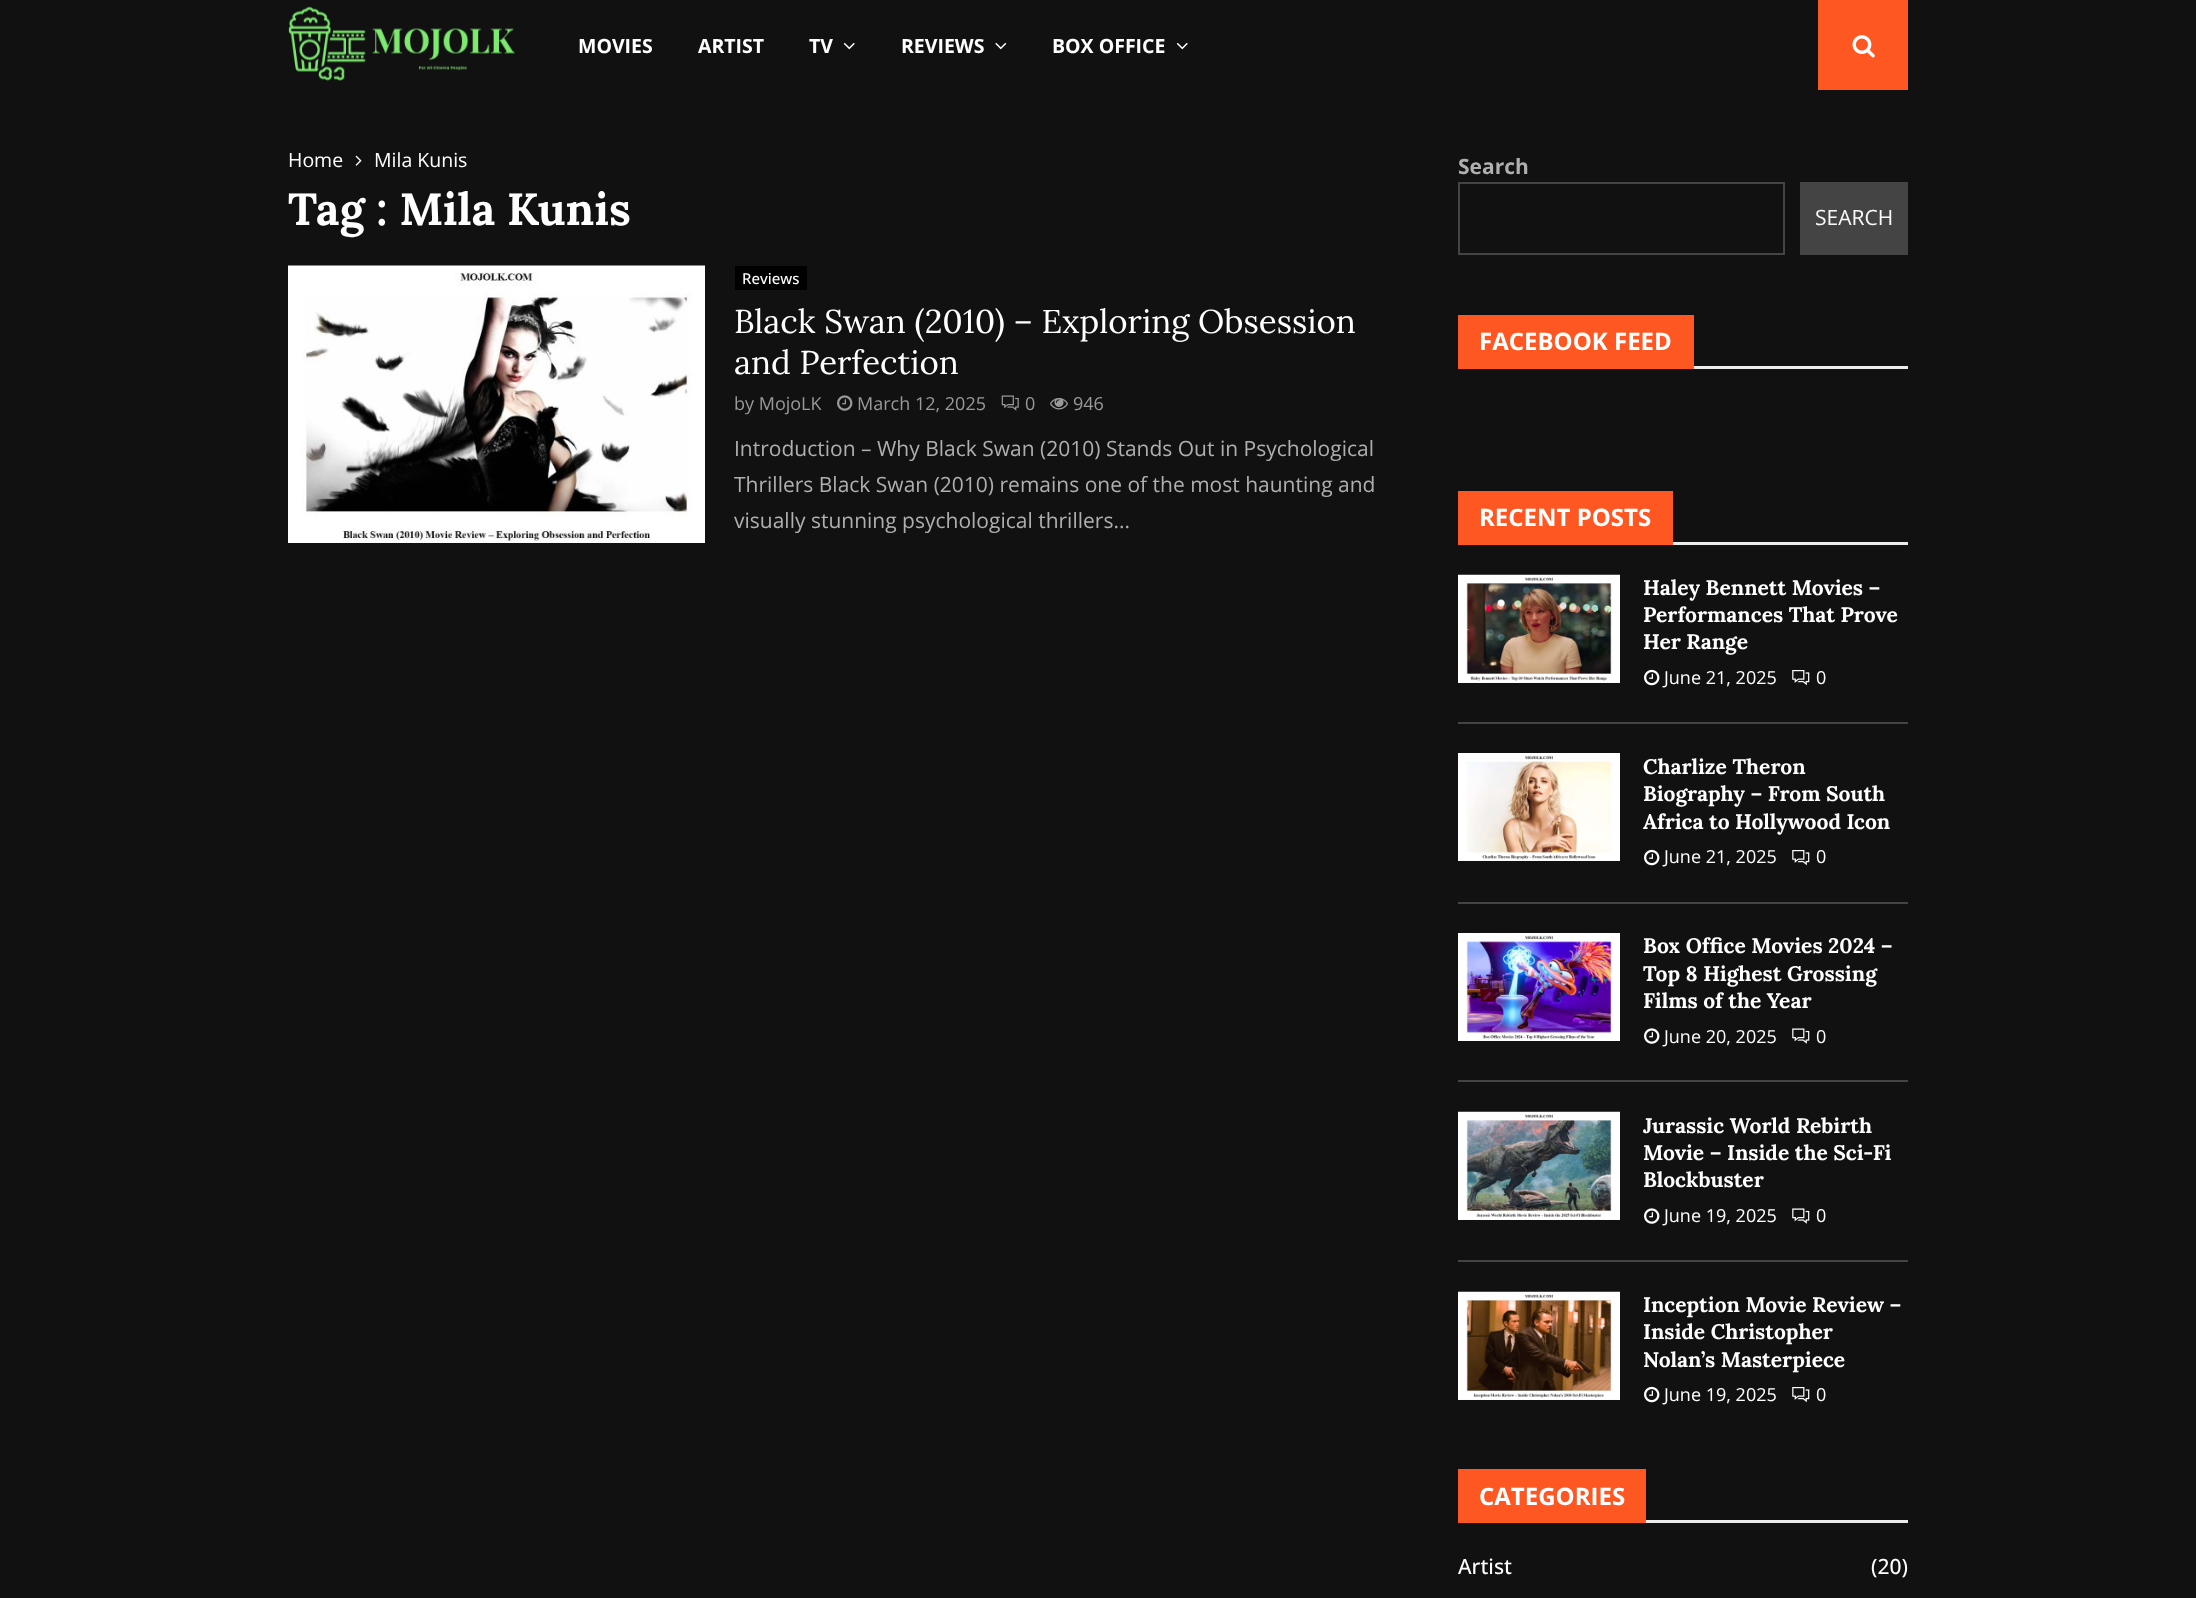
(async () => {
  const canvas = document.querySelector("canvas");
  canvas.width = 2196;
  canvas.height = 1598;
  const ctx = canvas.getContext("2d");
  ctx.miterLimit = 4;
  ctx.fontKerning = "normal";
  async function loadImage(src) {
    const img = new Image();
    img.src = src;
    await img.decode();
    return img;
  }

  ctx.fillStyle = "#111111";
  ctx.fillRect(0, 0, 2196, 1598);
  ctx.drawImage(await loadImage("img/1.png"), 288, 6, 227, 75);
  ctx.drawImage(await loadImage("img/2.png"), 843, 42, 12, 8);
  ctx.drawImage(await loadImage("img/3.png"), 995, 42, 12, 8);
  ctx.drawImage(await loadImage("img/2.png"), 1176, 42, 12, 8);
  ctx.fillStyle = "#ff5722";
  ctx.fillRect(1818, 0, 90, 90);
  ctx.drawImage(await loadImage("img/4.png"), 1852, 35, 23, 23);
  ctx.drawImage(await loadImage("img/5.png"), 355, 155, 7, 11);
  ctx.drawImage(await loadImage("img/6.png"), 288, 265, 417, 278);
  ctx.fillStyle = "#000000";
  ctx.fillRect(735, 266, 72, 24);
  ctx.drawImage(await loadImage("img/7.png"), 837, 395, 16, 16);
  ctx.drawImage(await loadImage("img/8.png"), 1001, 395, 18, 16);
  ctx.drawImage(await loadImage("img/9.png"), 1050, 397, 18, 13);
  ctx.strokeStyle = "#444444";
  ctx.lineWidth = 2;
  ctx.strokeRect(1459, 183, 325, 71);
  for (const [x, y, w, h, color] of [
    [1800, 182, 108, 73, "#444444"],
    [1694, 366, 214, 3, "#ececec"],
    [1458, 315, 236, 54, "#ff5722"],
    [1673, 542, 235, 3, "#ececec"],
    [1458, 491, 215, 54, "#ff5722"],
    [1458, 722, 450, 2, "#444444"],
    [1458, 682, 162, 1, "#f5f5f5"],
  ]) {
    ctx.fillStyle = color;
    ctx.fillRect(x, y, w, h);
  }
  ctx.drawImage(await loadImage("img/10.png"), 1458, 574, 162, 109);
  ctx.drawImage(await loadImage("img/11.png"), 1644, 669, 16, 17);
  ctx.drawImage(await loadImage("img/12.png"), 1792, 670, 18, 16);
  ctx.fillStyle = "#444444";
  ctx.fillRect(1458, 902, 450, 2);
  ctx.drawImage(await loadImage("img/13.png"), 1458, 753, 162, 108);
  ctx.drawImage(await loadImage("img/11.png"), 1644, 849, 16, 17);
  ctx.drawImage(await loadImage("img/12.png"), 1792, 850, 18, 16);
  ctx.fillRect(1458, 1080, 450, 2);
  ctx.drawImage(await loadImage("img/14.png"), 1458, 933, 162, 108);
  ctx.drawImage(await loadImage("img/15.png"), 1644, 1028, 16, 16);
  ctx.drawImage(await loadImage("img/16.png"), 1792, 1028, 18, 16);
  ctx.fillRect(1458, 1260, 450, 2);
  ctx.fillStyle = "#f5f5f5";
  ctx.fillRect(1458, 1219, 162, 1);
  ctx.drawImage(await loadImage("img/17.png"), 1458, 1111, 162, 109);
  ctx.drawImage(await loadImage("img/15.png"), 1644, 1208, 16, 16);
  ctx.drawImage(await loadImage("img/16.png"), 1792, 1208, 18, 16);
  ctx.fillRect(1458, 1399, 162, 1);
  ctx.drawImage(await loadImage("img/18.png"), 1458, 1291, 162, 109);
  ctx.drawImage(await loadImage("img/11.png"), 1644, 1386, 16, 17);
  ctx.drawImage(await loadImage("img/12.png"), 1792, 1387, 18, 16);
  ctx.fillStyle = "#ececec";
  ctx.fillRect(1646, 1520, 262, 3);
  ctx.fillStyle = "#ff5722";
  ctx.fillRect(1458, 1469, 188, 54);
  ctx.font = "bold 19.5px Open Sans";
  ctx.fillStyle = "#ffffff";
  for (const [text, x, y] of [
    ["MOVIES", 578, 53],
    ["ARTIST", 698, 53],
    ["TV", 809, 53],
    ["REVIEWS", 901, 53],
    ["BOX OFFICE", 1052, 53],
  ]) {
    ctx.fillText(text, x, y);
  }
  ctx.font = "19.5px Open Sans";
  ctx.fillText("Home", 288, 167);
  ctx.fillText("Mila Kunis", 374, 167);
  ctx.font = "bold 45px Lora";
  ctx.fillText("Tag : Mila Kunis", 288, 225);
  ctx.font = "500 15px Open Sans";
  ctx.fillText("Reviews", 742, 284);
  ctx.font = "33px Lora";
  ctx.fillText("Black Swan (2010) – Exploring Obsession", 734, 333);
  ctx.fillText("and Perfection", 734, 374);
  ctx.font = "18px Open Sans";
  ctx.fillStyle = "#999999";
  for (const [text, x, y] of [
    ["by MojoLK", 734, 410],
    ["March 12, 2025", 857, 410],
    ["0", 1025, 410],
    ["946", 1073, 410],
  ]) {
    ctx.fillText(text, x, y);
  }
  ctx.font = "21px Open Sans";
  ctx.fillStyle = "#afafaf";
  for (const [text, x, y] of [
    ["Introduction – Why Black Swan (2010) Stands Out in Psychological", 734, 456],
    ["Thrillers Black Swan (2010) remains one of the most haunting and", 734, 492],
    ["visually stunning psychological thrillers...", 734, 528],
  ]) {
    ctx.fillText(text, x, y);
  }
  ctx.font = "bold 21px Open Sans";
  ctx.fillText("Search", 1458, 174);
  ctx.font = "21px Open Sans";
  ctx.fillStyle = "#f9f9f9";
  ctx.fillText("SEARCH", 1815, 225);
  ctx.font = "bold 24px Open Sans";
  ctx.fillStyle = "#ffffff";
  ctx.fillText("FACEBOOK FEED", 1479, 350);
  ctx.fillText("RECENT POSTS", 1479, 526);
  ctx.font = "bold 21px Lora";
  for (const [text, x, y] of [
    ["Haley Bennett Movies –", 1643, 595],
    ["Performances That Prove", 1643, 622],
    ["Her Range", 1643, 649],
  ]) {
    ctx.fillText(text, x, y);
  }
  ctx.font = "18px Open Sans";
  ctx.fillText("June 21, 2025", 1664, 684);
  ctx.fillText("0", 1816, 684);
  ctx.font = "bold 21px Lora";
  for (const [text, x, y] of [
    ["Charlize Theron", 1643, 774],
    ["Biography – From South", 1643, 801],
    ["Africa to Hollywood Icon", 1643, 829],
  ]) {
    ctx.fillText(text, x, y);
  }
  ctx.font = "18px Open Sans";
  ctx.fillText("June 21, 2025", 1664, 863);
  ctx.fillText("0", 1816, 863);
  ctx.font = "bold 21px Lora";
  for (const [text, x, y] of [
    ["Box Office Movies 2024 –", 1643, 953],
    ["Top 8 Highest Grossing", 1643, 981],
    ["Films of the Year", 1643, 1008],
  ]) {
    ctx.fillText(text, x, y);
  }
  ctx.font = "18px Open Sans";
  ctx.fillText("June 20, 2025", 1664, 1043);
  ctx.fillText("0", 1816, 1043);
  ctx.font = "bold 21px Lora";
  for (const [text, x, y] of [
    ["Jurassic World Rebirth", 1643, 1133],
    ["Movie – Inside the Sci-Fi", 1643, 1160],
    ["Blockbuster", 1643, 1187],
  ]) {
    ctx.fillText(text, x, y);
  }
  ctx.font = "18px Open Sans";
  ctx.fillText("June 19, 2025", 1664, 1222);
  ctx.fillText("0", 1816, 1222);
  ctx.font = "bold 21px Lora";
  for (const [text, x, y] of [
    ["Inception Movie Review –", 1643, 1312],
    ["Inside Christopher", 1643, 1339],
    ["Nolan’s Masterpiece", 1643, 1367],
  ]) {
    ctx.fillText(text, x, y);
  }
  ctx.font = "18px Open Sans";
  ctx.fillText("June 19, 2025", 1664, 1401);
  ctx.fillText("0", 1816, 1401);
  ctx.font = "bold 24px Open Sans";
  ctx.fillText("CATEGORIES", 1479, 1505);
  ctx.font = "500 21px Open Sans";
  ctx.fillText("Artist", 1458, 1574);
  ctx.fillText("(20)", 1871, 1574);
})();
